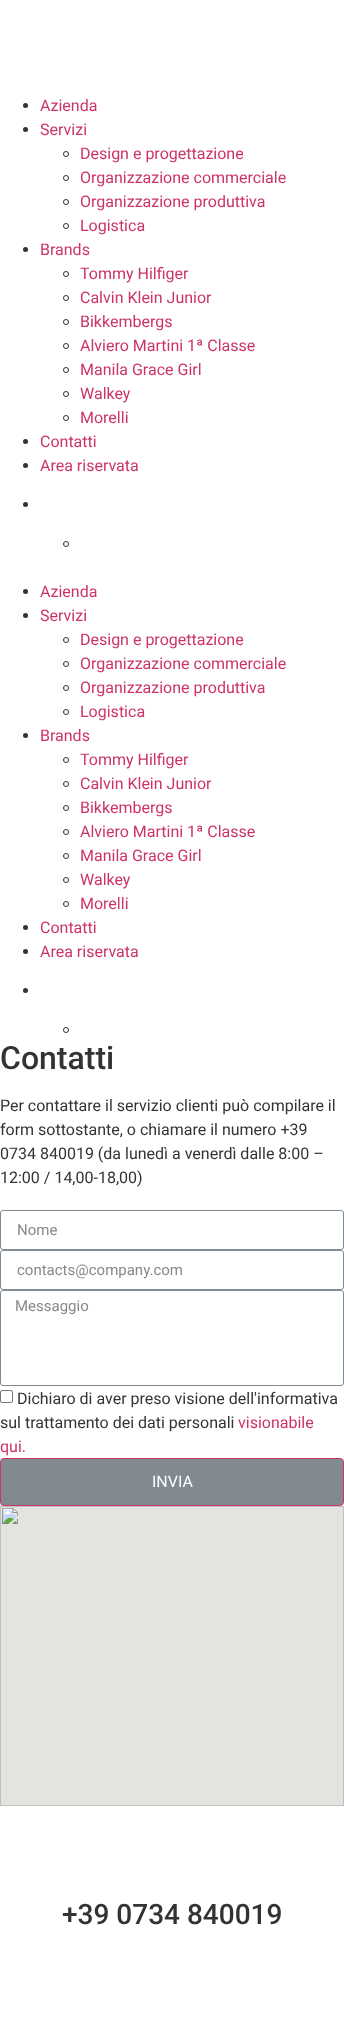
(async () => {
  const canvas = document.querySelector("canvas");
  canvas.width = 344;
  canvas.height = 2024;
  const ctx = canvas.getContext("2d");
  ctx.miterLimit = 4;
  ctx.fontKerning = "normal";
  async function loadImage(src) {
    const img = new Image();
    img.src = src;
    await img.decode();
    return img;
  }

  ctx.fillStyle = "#ffffff";
  ctx.fillRect(0, 0, 344, 2024);
  ctx.fillStyle = "#333333";
  ctx.beginPath();
  ctx.arc(25.5, 105.5, 2.5, 0, Math.PI * 2);
  ctx.fill();
  ctx.beginPath();
  ctx.arc(25.5, 129.5, 2.5, 0, Math.PI * 2);
  ctx.fill();
  ctx.beginPath();
  ctx.arc(66, 154, 2.5, 0, Math.PI * 2);
  ctx.strokeStyle = "#333333";
  ctx.stroke();
  ctx.beginPath();
  ctx.arc(66, 178, 2.5, 0, Math.PI * 2);
  ctx.stroke();
  ctx.beginPath();
  ctx.arc(66, 202, 2.5, 0, Math.PI * 2);
  ctx.stroke();
  ctx.beginPath();
  ctx.arc(66, 226, 2.5, 0, Math.PI * 2);
  ctx.stroke();
  ctx.beginPath();
  ctx.arc(25.5, 249.5, 2.5, 0, Math.PI * 2);
  ctx.fill();
  ctx.beginPath();
  ctx.arc(66, 274, 2.5, 0, Math.PI * 2);
  ctx.stroke();
  ctx.beginPath();
  ctx.arc(66, 298, 2.5, 0, Math.PI * 2);
  ctx.stroke();
  ctx.beginPath();
  ctx.arc(66, 322, 2.5, 0, Math.PI * 2);
  ctx.stroke();
  ctx.beginPath();
  ctx.arc(66, 346, 2.5, 0, Math.PI * 2);
  ctx.stroke();
  ctx.beginPath();
  ctx.arc(66, 370, 2.5, 0, Math.PI * 2);
  ctx.stroke();
  ctx.beginPath();
  ctx.arc(66, 394, 2.5, 0, Math.PI * 2);
  ctx.stroke();
  ctx.beginPath();
  ctx.arc(66, 418, 2.5, 0, Math.PI * 2);
  ctx.stroke();
  ctx.beginPath();
  ctx.arc(25.5, 441.5, 2.5, 0, Math.PI * 2);
  ctx.fill();
  ctx.beginPath();
  ctx.arc(25.5, 465.5, 2.5, 0, Math.PI * 2);
  ctx.fill();
  ctx.beginPath();
  ctx.arc(25.5, 504.5, 2.5, 0, Math.PI * 2);
  ctx.fill();
  ctx.beginPath();
  ctx.arc(66, 544, 2.5, 0, Math.PI * 2);
  ctx.stroke();
  ctx.beginPath();
  ctx.arc(25.5, 591.5, 2.5, 0, Math.PI * 2);
  ctx.fill();
  ctx.beginPath();
  ctx.arc(25.5, 615.5, 2.5, 0, Math.PI * 2);
  ctx.fill();
  ctx.beginPath();
  ctx.arc(66, 640, 2.5, 0, Math.PI * 2);
  ctx.stroke();
  ctx.beginPath();
  ctx.arc(66, 664, 2.5, 0, Math.PI * 2);
  ctx.stroke();
  ctx.beginPath();
  ctx.arc(66, 688, 2.5, 0, Math.PI * 2);
  ctx.stroke();
  ctx.beginPath();
  ctx.arc(66, 712, 2.5, 0, Math.PI * 2);
  ctx.stroke();
  ctx.beginPath();
  ctx.arc(25.5, 735.5, 2.5, 0, Math.PI * 2);
  ctx.fill();
  ctx.beginPath();
  ctx.arc(66, 760, 2.5, 0, Math.PI * 2);
  ctx.stroke();
  ctx.beginPath();
  ctx.arc(66, 784, 2.5, 0, Math.PI * 2);
  ctx.stroke();
  ctx.beginPath();
  ctx.arc(66, 808, 2.5, 0, Math.PI * 2);
  ctx.stroke();
  ctx.beginPath();
  ctx.arc(66, 832, 2.5, 0, Math.PI * 2);
  ctx.stroke();
  ctx.beginPath();
  ctx.arc(66, 856, 2.5, 0, Math.PI * 2);
  ctx.stroke();
  ctx.beginPath();
  ctx.arc(66, 880, 2.5, 0, Math.PI * 2);
  ctx.stroke();
  ctx.beginPath();
  ctx.arc(66, 904, 2.5, 0, Math.PI * 2);
  ctx.stroke();
  ctx.beginPath();
  ctx.arc(25.5, 927.5, 2.5, 0, Math.PI * 2);
  ctx.fill();
  ctx.beginPath();
  ctx.arc(25.5, 951.5, 2.5, 0, Math.PI * 2);
  ctx.fill();
  ctx.beginPath();
  ctx.arc(25.5, 990.5, 2.5, 0, Math.PI * 2);
  ctx.fill();
  ctx.beginPath();
  ctx.arc(66, 1030, 2.5, 0, Math.PI * 2);
  ctx.stroke();
  ctx.beginPath();
  ctx.roundRect(0.5, 1210.5, 343, 39, 2.5);
  ctx.strokeStyle = "#818a91";
  ctx.stroke();
  ctx.beginPath();
  ctx.roundRect(0.5, 1250.5, 343, 39, 2.5);
  ctx.stroke();
  ctx.beginPath();
  ctx.roundRect(0.5, 1290.5, 343, 95, 2.5);
  ctx.stroke();
  ctx.beginPath();
  ctx.roundRect(0.5, 1390.5, 12, 12, 1.5);
  ctx.strokeStyle = "#767676";
  ctx.stroke();
  ctx.fillStyle = "#818a91";
  ctx.beginPath();
  ctx.roundRect(0.5, 1458.5, 343, 47, 3.5);
  ctx.fill();
  ctx.strokeStyle = "#cc3366";
  ctx.stroke();
  ctx.drawImage(await loadImage("img/1.png"), 0, 1506, 344, 300);
  ctx.font = "16px Roboto";
  ctx.fillStyle = "#cc3366";
  for (const [text, x, y] of [
    ["Azienda", 40, 111],
    ["Servizi", 40, 135],
    ["Design e progettazione", 80, 159],
    ["Organizzazione commerciale", 80, 183],
    ["Organizzazione produttiva", 80, 207],
    ["Logistica", 80, 231],
    ["Brands", 40, 255],
    ["Tommy Hilfiger", 80, 279],
    ["Calvin Klein Junior", 80, 303],
    ["Bikkembergs", 80, 327],
    ["Alviero Martini 1ª Classe", 80, 351],
    ["Manila Grace Girl", 80, 375],
    ["Walkey", 80, 399],
    ["Morelli", 80, 423],
    ["Contatti", 40, 447],
    ["Area riservata", 40, 471],
    ["Azienda", 40, 597],
    ["Servizi", 40, 621],
    ["Design e progettazione", 80, 645],
    ["Organizzazione commerciale", 80, 669],
    ["Organizzazione produttiva", 80, 693],
    ["Logistica", 80, 717],
    ["Brands", 40, 741],
    ["Tommy Hilfiger", 80, 765],
    ["Calvin Klein Junior", 80, 789],
    ["Bikkembergs", 80, 813],
    ["Alviero Martini 1ª Classe", 80, 837],
    ["Manila Grace Girl", 80, 861],
    ["Walkey", 80, 885],
    ["Morelli", 80, 909],
    ["Contatti", 40, 933],
    ["Area riservata", 40, 957],
  ]) {
    ctx.fillText(text, x, y);
  }
  ctx.font = "500 32px Roboto";
  ctx.fillStyle = "#333333";
  ctx.fillText("Contatti", 0, 1069);
  ctx.font = "16px Roboto";
  for (const [text, x, y] of [
    ["Per contattare il servizio clienti può compilare il", 0, 1111],
    ["form sottostante, o chiamare il numero +39", 0, 1135],
    ["0734 840019 (da lunedì a venerdì dalle 8:00 –", 0, 1159],
    ["12:00 / 14,00-18,00)", 0, 1183],
  ]) {
    ctx.fillText(text, x, y);
  }
  ctx.font = "15px Roboto";
  ctx.fillStyle = "#87898a";
  for (const [text, x, y] of [
    ["Nome", 17, 1235],
    ["contacts@company.com", 17, 1275],
    ["Messaggio", 15, 1311],
  ]) {
    ctx.fillText(text, x, y);
  }
  ctx.font = "16px Roboto";
  ctx.fillStyle = "#333333";
  ctx.fillText("Dichiaro di aver preso visione dell'informativa", 17, 1404);
  ctx.fillText("sul trattamento dei dati personali", 0, 1428);
  ctx.fillStyle = "#cc3366";
  ctx.fillText("visionabile", 238, 1428);
  ctx.fillText("qui.", 0, 1452);
  ctx.fillStyle = "#ffffff";
  ctx.fillText("INVIA", 152, 1487);
  ctx.font = "500 28px Roboto";
  ctx.fillStyle = "#333333";
  ctx.fillText("+39 0734 840019", 62, 1924);
})();
